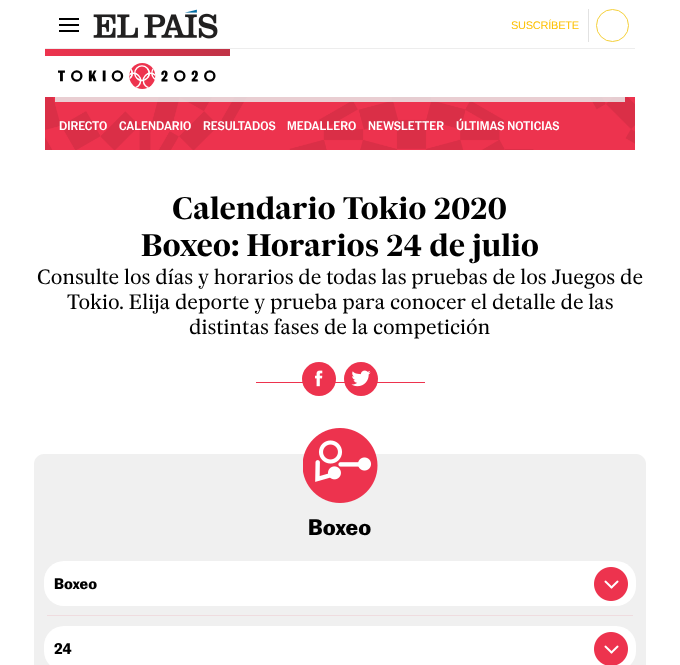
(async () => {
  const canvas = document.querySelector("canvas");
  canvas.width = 680;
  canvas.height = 665;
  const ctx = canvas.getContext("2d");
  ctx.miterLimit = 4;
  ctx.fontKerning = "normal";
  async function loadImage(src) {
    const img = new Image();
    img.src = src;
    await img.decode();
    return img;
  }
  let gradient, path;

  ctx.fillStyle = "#ffffff";
  ctx.fillRect(0, 0, 680, 665);
  ctx.fillStyle = "#e2e2e2";
  ctx.fillRect(588, 9, 1, 33);
  ctx.beginPath();
  ctx.arc(612.5, 25.5, 16, 0, Math.PI * 2);
  ctx.strokeStyle = "#f5d03a";
  ctx.stroke();
  for (const [x, y, w, h, color] of [
    [59, 18, 20, 2, "#000000"],
    [59, 24, 20, 2, "#000000"],
    [59, 30, 20, 2, "#000000"],
  ]) {
    ctx.fillStyle = color;
    ctx.fillRect(x, y, w, h);
  }
  ctx.drawImage(await loadImage("img/1.png"), 93, 9, 125, 30);
  ctx.fillStyle = "#ededed";
  ctx.fillRect(45, 48, 590, 1);
  gradient = ctx.createLinearGradient(230, 52, 45, 53);
  gradient.addColorStop(0, "#c03347");
  gradient.addColorStop(1, "#ed334e");
  ctx.fillStyle = gradient;
  ctx.fillRect(45, 49, 185, 7);
  ctx.drawImage(await loadImage("img/2.png"), 58, 63, 158, 26);
  ctx.drawImage(await loadImage("img/3.png"), 45, 97, 590, 53);
  ctx.fillStyle = "rgba(232, 232, 232, 0.86)";
  ctx.fillRect(55, 97, 570, 5);
  ctx.fillStyle = "#ed334e";
  ctx.fillRect(256, 382, 169, 1);
  ctx.beginPath();
  ctx.arc(319, 379, 17, 0, Math.PI * 2);
  ctx.fill();
  ctx.drawImage(await loadImage("img/4.png"), 315, 370, 8, 17);
  ctx.beginPath();
  ctx.arc(361, 379, 17, 0, Math.PI * 2);
  ctx.fill();
  ctx.drawImage(await loadImage("img/5.png"), 351, 370, 20, 17);
  ctx.fillStyle = "#f0f0f0";
  path = new Path2D("M44 454H636C641.5 454 646 458.5 646 464V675H34V464C34 458.5 38.5 454 44 454Z");
  ctx.fill(path);
  ctx.drawImage(await loadImage("img/6.png"), 303, 428, 75, 75);
  ctx.fillStyle = "#ffffff";
  ctx.beginPath();
  ctx.roundRect(44, 561, 592, 45, 20);
  ctx.fill();
  ctx.drawImage(await loadImage("img/7.png"), 594, 567, 34, 34);
  ctx.fillStyle = "#efdcdf";
  ctx.fillRect(47, 615, 586, 1);
  ctx.fillStyle = "#ffffff";
  ctx.beginPath();
  ctx.roundRect(44, 626, 592, 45, 20);
  ctx.fill();
  ctx.drawImage(await loadImage("img/8.png"), 594, 632, 34, 33);
  ctx.letterSpacing = "-0.25px";
  ctx.font = "11px Liberation Sans";
  ctx.fillStyle = "#fdc002";
  ctx.fillText("SUSCRÍBETE", 511, 29);
  ctx.letterSpacing = "0px";
  ctx.font = "500 12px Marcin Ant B";
  ctx.fillStyle = "#ffffff";
  for (const [text, x, y] of [
    ["DIRECTO", 59, 130],
    ["CALENDARIO", 119, 130],
    ["RESULTADOS", 203, 130],
    ["MEDALLERO", 287, 130],
    ["NEWSLETTER", 368, 130],
    ["ÚLTIMAS NOTICIAS", 456, 130],
  ]) {
    ctx.fillText(text, x, y);
  }
  ctx.font = "bold 30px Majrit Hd";
  ctx.fillStyle = "#000000";
  ctx.fillText("Calendario Tokio 2020", 172, 219);
  ctx.fillText("Boxeo: Horarios 24 de julio", 141, 256);
  ctx.font = "20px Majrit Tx";
  for (const [text, x, y] of [
    ["Consulte los días y horarios de todas las pruebas de los Juegos de", 37, 284],
    ["Tokio. Elija deporte y prueba para conocer el detalle de las", 67, 309],
    ["distintas fases de la competición", 189, 334],
  ]) {
    ctx.fillText(text, x, y);
  }
  ctx.font = "bold 22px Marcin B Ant";
  ctx.fillText("Boxeo", 308, 535);
  ctx.font = "bold 15px Marcin B Ant";
  ctx.fillText("Boxeo", 54, 589);
  ctx.fillText("24", 54, 654);
})();
